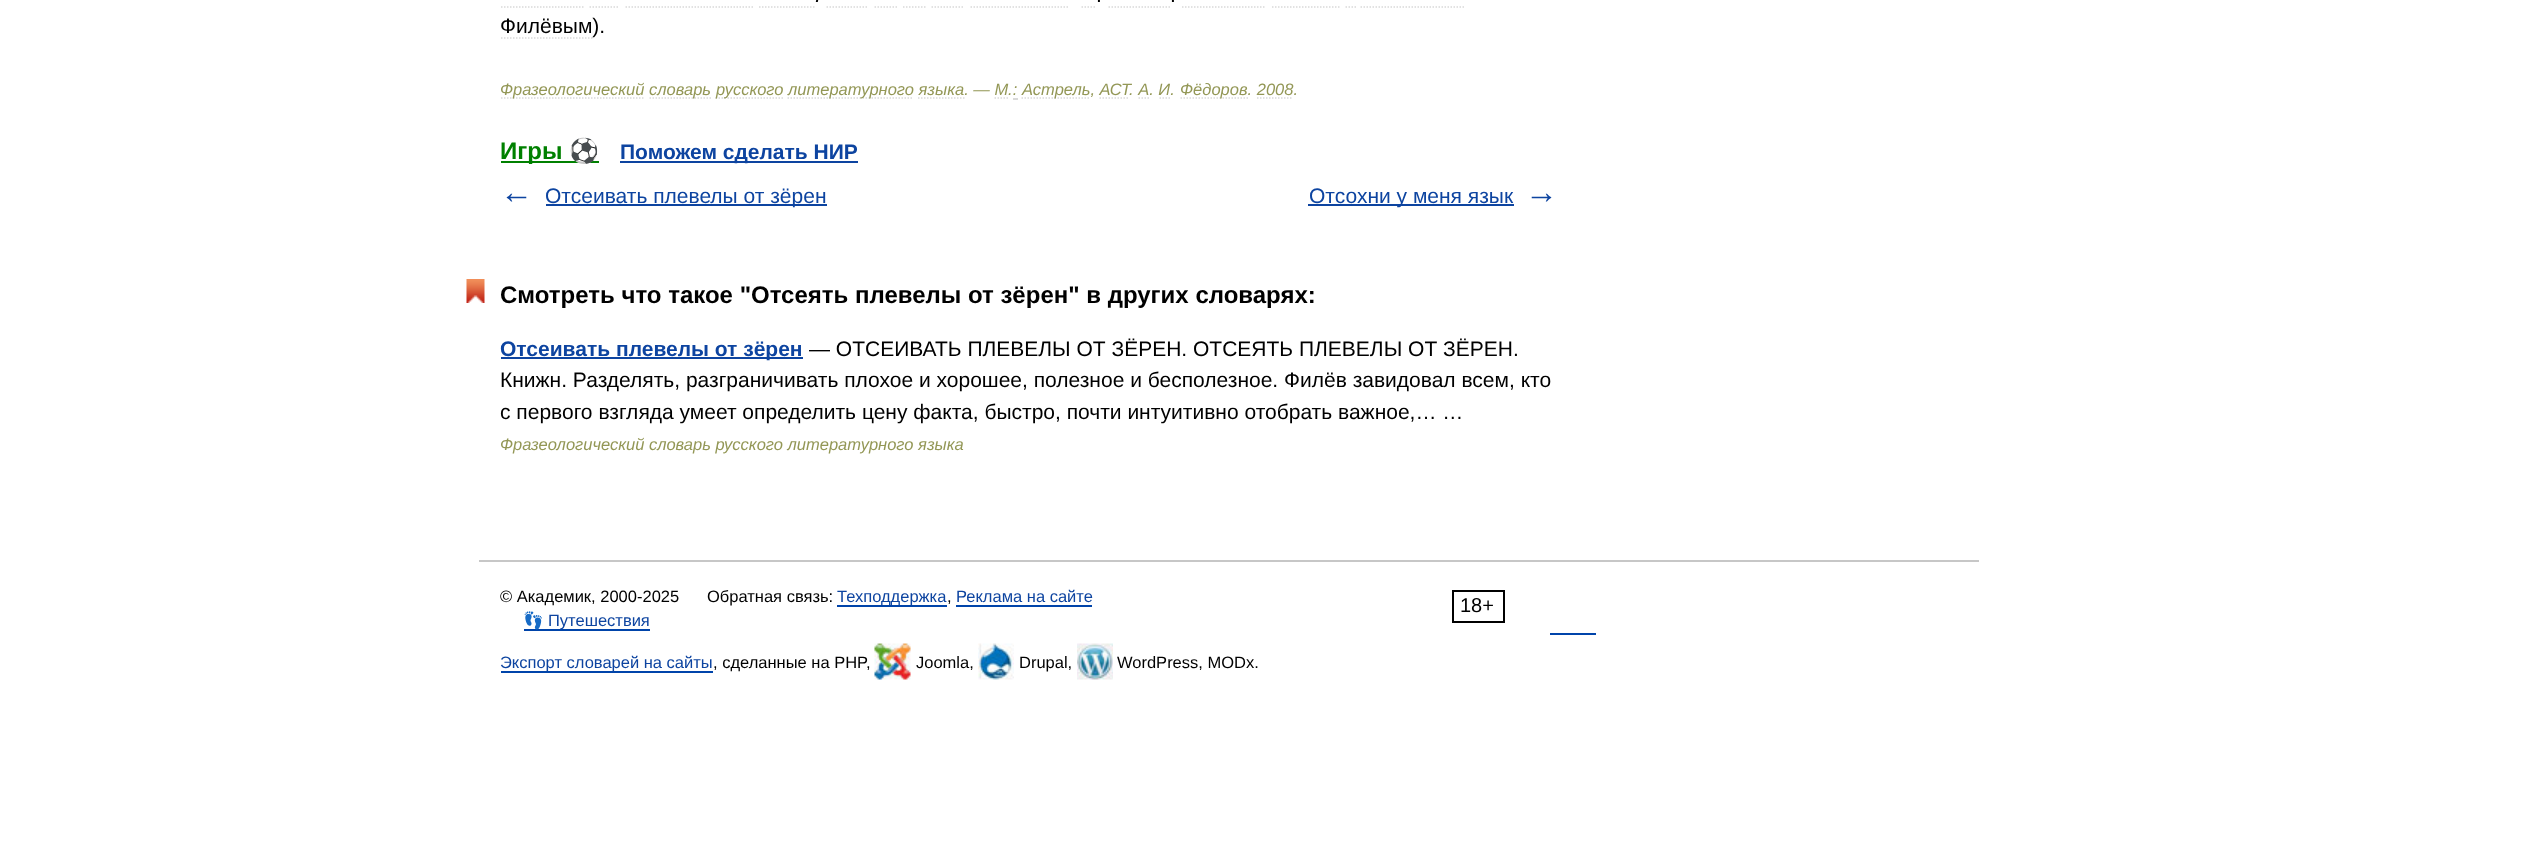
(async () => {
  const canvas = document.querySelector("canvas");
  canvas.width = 2530;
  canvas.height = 862;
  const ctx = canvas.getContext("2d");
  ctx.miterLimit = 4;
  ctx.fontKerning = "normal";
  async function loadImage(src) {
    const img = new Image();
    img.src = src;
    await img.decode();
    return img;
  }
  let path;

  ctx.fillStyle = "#ffffff";
  ctx.fillRect(0, 0, 2530, 862);
  path = new Path2D("M501 7H583.5");
  ctx.strokeStyle = "#d9d9d9";
  ctx.lineWidth = 1.5;
  ctx.setLineDash([1.5, 1.5]);
  ctx.stroke(path);
  path = new Path2D("M589.5 7H619.5");
  ctx.stroke(path);
  path = new Path2D("M625.5 7H753");
  ctx.stroke(path);
  path = new Path2D("M759 7H814.5");
  ctx.stroke(path);
  path = new Path2D("M826.5 7H868.5");
  ctx.stroke(path);
  path = new Path2D("M874.5 7H897M903 7H927");
  ctx.stroke(path);
  path = new Path2D("M931.5 7H964.5");
  ctx.stroke(path);
  path = new Path2D("M970.5 7H1068");
  ctx.stroke(path);
  path = new Path2D("M1081.5 7H1096.5");
  ctx.stroke(path);
  path = new Path2D("M1108.5 7H1170");
  ctx.stroke(path);
  path = new Path2D("M1182 7H1266");
  ctx.stroke(path);
  path = new Path2D("M1272 7H1339.5");
  ctx.stroke(path);
  path = new Path2D("M1345.5 7H1347M1348.5 7H1350M1351.5 7H1353M1354.5 7H1356");
  ctx.setLineDash([]);
  ctx.stroke(path);
  path = new Path2D("M1360.5 7H1464");
  ctx.setLineDash([1.5, 1.5]);
  ctx.stroke(path);
  path = new Path2D("M501 38H592.5");
  ctx.stroke(path);
  path = new Path2D("M501 98H645");
  ctx.stroke(path);
  path = new Path2D("M649.5 98H711");
  ctx.stroke(path);
  path = new Path2D("M715.5 98H783");
  ctx.stroke(path);
  path = new Path2D("M787.5 98H913.5");
  ctx.stroke(path);
  path = new Path2D("M1021.5 98H1090.5");
  ctx.stroke(path);
  path = new Path2D("M1138.5 98H1140M1141.5 98H1143M1144.5 98H1146M1147.5 98H1149M1159.5 98H1161M1162.5 98H1164M1165.5 98H1167M1168.5 98H1170");
  ctx.setLineDash([]);
  ctx.stroke(path);
  path = new Path2D("M1180.5 98H1248");
  ctx.setLineDash([1.5, 1.5]);
  ctx.stroke(path);
  for (const [x, y, w, h, color] of [
    [501, 161, 98, 2, "#008000"],
    [620, 161, 238, 2, "#0d44a0"],
    [546, 204, 281, 2, "#0d44a0"],
    [1308, 204, 206, 2, "#0d44a0"],
  ]) {
    ctx.fillStyle = color;
    ctx.fillRect(x, y, w, h);
  }
  ctx.drawImage(await loadImage("img/1.png"), 466, 279, 19, 24);
  for (const [x, y, w, h, color] of [
    [501, 357, 302, 2, "#0d44a0"],
    [479, 560, 1500, 2, "#c7c7c7"],
    [837, 605, 110, 2, "#0044aa"],
    [956, 605, 136, 2, "#0044aa"],
  ]) {
    ctx.fillStyle = color;
    ctx.fillRect(x, y, w, h);
  }
  ctx.strokeStyle = "#000000";
  ctx.lineWidth = 2;
  ctx.setLineDash([]);
  ctx.strokeRect(1453, 591, 51, 31);
  for (const [x, y, w, h, color] of [
    [524, 629, 126, 2, "#0044aa"],
    [1550, 633, 46, 2, "#0044aa"],
    [501, 671, 212, 2, "#0044aa"],
  ]) {
    ctx.fillStyle = color;
    ctx.fillRect(x, y, w, h);
  }
  ctx.drawImage(await loadImage("img/2.png"), 874, 643, 37, 37);
  ctx.drawImage(await loadImage("img/3.png"), 978, 643, 36, 37);
  ctx.drawImage(await loadImage("img/4.png"), 1077, 643, 36, 37);
  ctx.font = "italic 21px Liberation Sans";
  ctx.fillStyle = "#000000";
  ctx.fillText(".", 815, 2);
  ctx.font = "21px Liberation Sans";
  for (const [text, x, y] of [
    [".", 1096, 2],
    [".", 1170, 2],
    ["Филёвым).", 500, 33],
  ]) {
    ctx.fillText(text, x, y);
  }
  ctx.font = "italic 16.5px Liberation Sans";
  ctx.fillStyle = "#939756";
  for (const [text, x, y] of [
    ["Фразеологический", 500, 95],
    ["словарь", 649, 95],
    ["русского", 716, 95],
    ["литературного языка. — М.:", 788, 95],
  ]) {
    ctx.fillText(text, x, y);
  }
  path = new Path2D("M918 98H964.5");
  ctx.strokeStyle = "#d9d9d9";
  ctx.lineWidth = 1.5;
  ctx.setLineDash([1.5, 1.5]);
  ctx.stroke(path);
  path = new Path2D("M994.5 98H1008");
  ctx.stroke(path);
  ctx.fillStyle = "#d9d9d9";
  ctx.fillRect(1013, 98, 5, 2);
  ctx.fillStyle = "#939756";
  ctx.fillText("Астрель, АСТ", 1022, 95);
  path = new Path2D("M1099.5 98H1129.5");
  ctx.stroke(path);
  ctx.fillText(". А. И.", 1129, 95);
  ctx.fillText("Фёдоров. 2008.", 1180, 95);
  path = new Path2D("M1257 98H1293");
  ctx.stroke(path);
  ctx.font = "bold 24px Liberation Sans";
  ctx.fillStyle = "#008000";
  ctx.fillText("Игры", 500, 159);
  ctx.font = "bold 24px Noto Color Emoji";
  ctx.fillText("⚽", 569, 159);
  ctx.font = "bold 21px Liberation Sans";
  ctx.fillStyle = "#0d44a0";
  ctx.fillText("Поможем сделать НИР", 620, 159);
  ctx.font = "bold 33px Liberation Sans";
  ctx.fillText("←", 500, 203);
  ctx.font = "21px Liberation Sans";
  ctx.fillText("Отсеивать плевелы от зёрен", 545, 203);
  ctx.fillText("Отсохни у меня язык", 1309, 203);
  ctx.font = "bold 33px Liberation Sans";
  ctx.fillText("→", 1525, 203);
  ctx.font = "bold 24px Liberation Sans";
  ctx.fillStyle = "#000000";
  ctx.fillText("Смотреть что такое \"Отсеять плевелы от зёрен\" в других словарях:", 500, 303);
  ctx.font = "bold 21px Liberation Sans";
  ctx.fillStyle = "#0d44a0";
  ctx.fillText("Отсеивать плевелы от зёрен", 500, 356);
  ctx.font = "21px Liberation Sans";
  ctx.fillStyle = "#000000";
  for (const [text, x, y] of [
    ["— ОТСЕИВАТЬ ПЛЕВЕЛЫ ОТ ЗЁРЕН. ОТСЕЯТЬ ПЛЕВЕЛЫ ОТ ЗЁРЕН.", 809, 356],
    ["Книжн. Разделять, разграничивать плохое и хорошее, полезное и бесполезное. Филёв завидовал всем, кто", 500, 387],
    ["с первого взгляда умеет определить цену факта, быстро, почти интуитивно отобрать важное,… …", 500, 419],
  ]) {
    ctx.fillText(text, x, y);
  }
  ctx.font = "italic 16.5px Liberation Sans";
  ctx.fillStyle = "#939756";
  ctx.fillText("Фразеологический словарь русского литературного языка", 500, 450);
  ctx.font = "16.5px Liberation Sans";
  ctx.fillStyle = "#000000";
  ctx.fillText("© Академик, 2000-2025", 500, 602);
  ctx.fillText("Обратная связь:", 707, 602);
  ctx.fillStyle = "#0d44a0";
  ctx.fillText("Техподдержка", 837, 602);
  ctx.fillStyle = "#000000";
  ctx.fillText(",", 947, 602);
  ctx.fillStyle = "#0d44a0";
  ctx.fillText("Реклама на сайте", 956, 602);
  ctx.font = "20px Liberation Sans";
  ctx.fillStyle = "#000000";
  ctx.fillText("18+", 1460, 612);
  ctx.font = "16.5px Noto Color Emoji";
  ctx.fillStyle = "#0d44a0";
  ctx.fillText("👣", 523, 626);
  ctx.font = "16.5px Liberation Sans";
  ctx.fillText("Путешествия", 548, 626);
  ctx.fillText("Экспорт словарей на сайты", 500, 668);
  ctx.fillStyle = "#000000";
  for (const [text, x, y] of [
    [", сделанные на PHP,", 713, 668],
    ["Joomla,", 916, 668],
    ["Drupal,", 1019, 668],
    ["WordPress, MODx.", 1117, 668],
  ]) {
    ctx.fillText(text, x, y);
  }
})();
